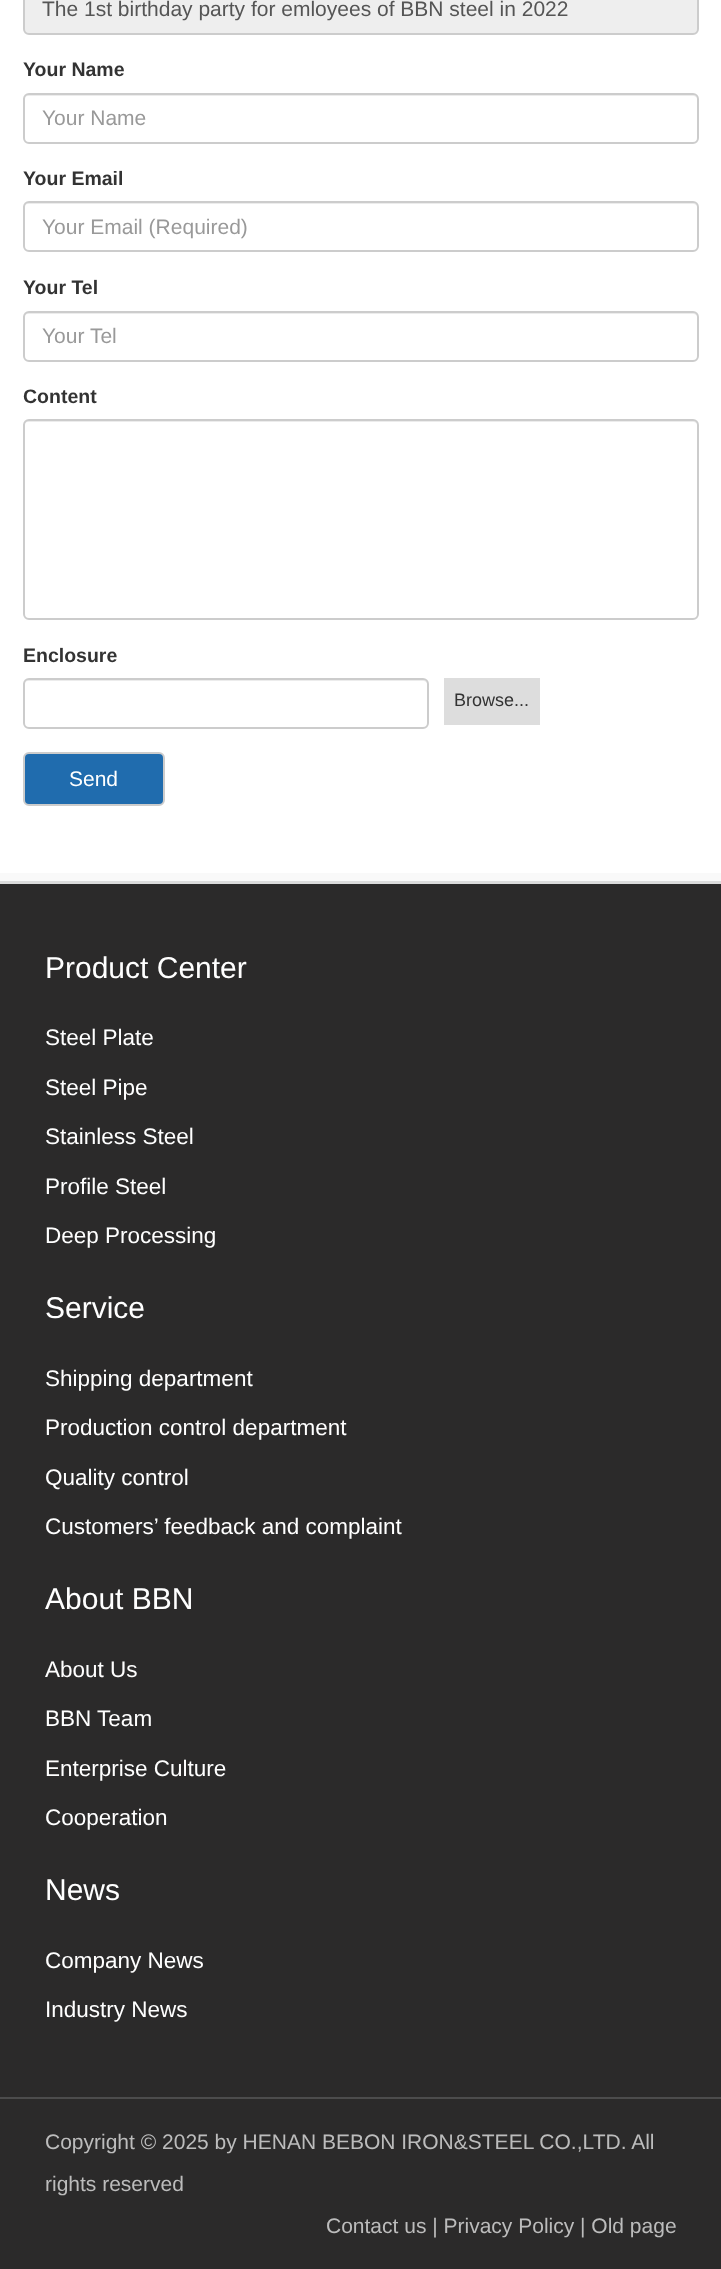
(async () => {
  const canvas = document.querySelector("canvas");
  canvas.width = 721;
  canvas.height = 2269;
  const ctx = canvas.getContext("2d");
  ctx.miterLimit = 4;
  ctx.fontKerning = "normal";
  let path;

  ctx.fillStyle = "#f9f9f9";
  ctx.fillRect(0, 0, 721, 2269);
  ctx.fillStyle = "#ffffff";
  ctx.fillRect(0, 0, 721, 873);
  ctx.fillStyle = "#eeeeee";
  ctx.beginPath();
  ctx.roundRect(24, -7, 674, 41, 5);
  ctx.fill();
  ctx.strokeStyle = "#cccccc";
  ctx.lineWidth = 2;
  ctx.stroke();
  ctx.fillStyle = "#ececec";
  path = new Path2D("M28 96H693C695 96 698 98 698 100C698 97 696 95 693 95H29C26 95 24 97 24 100C24 98 26 96 28 96Z");
  ctx.fill(path);
  ctx.beginPath();
  ctx.roundRect(24, 94, 674, 49, 5);
  ctx.stroke();
  path = new Path2D("M28 204H693C695 204 698 206 698 208C698 205 696 203 693 203H29C26 203 24 205 24 208C24 206 26 204 28 204Z");
  ctx.fill(path);
  ctx.beginPath();
  ctx.roundRect(24, 202, 674, 49, 5);
  ctx.stroke();
  path = new Path2D("M28 314H693C695 314 698 316 698 318V317C698 314 696 312 693 312H29C26 312 24 314 24 317V318C24 316 26 314 28 314Z");
  ctx.fill(path);
  ctx.beginPath();
  ctx.roundRect(24, 312, 674, 49, 5);
  ctx.stroke();
  path = new Path2D("M28 422H693C695 422 698 424 698 426V425C698 422 696 420 693 420H29C26 420 24 422 24 425V426C24 424 26 422 28 422Z");
  ctx.fill(path);
  ctx.beginPath();
  ctx.roundRect(24, 420, 674, 199, 5);
  ctx.stroke();
  path = new Path2D("M28 681H423C425 681 428 683 428 686V685C428 682 426 680 423 680H29C26 680 24 682 24 685V686C24 683 26 681 28 681Z");
  ctx.fill(path);
  ctx.beginPath();
  ctx.roundRect(24, 679, 404, 49, 5);
  ctx.stroke();
  ctx.fillStyle = "#dddddd";
  ctx.fillRect(444, 678, 96, 47);
  ctx.fillStyle = "#206cae";
  ctx.beginPath();
  ctx.roundRect(24, 753, 140, 52, 5);
  ctx.fill();
  ctx.stroke();
  for (const [x, y, w, h, color] of [
    [0, 884, 721, 1385, "#2b2a2a"],
    [0, 881, 721, 3, "#dbdbdb"],
    [0, 2097, 721, 2, "#4c4c4c"],
  ]) {
    ctx.fillStyle = color;
    ctx.fillRect(x, y, w, h);
  }
  ctx.font = "21px Liberation Sans";
  ctx.fillStyle = "#555555";
  ctx.fillText("The 1st birthday party for emloyees of BBN steel in 2022", 42, 16);
  ctx.font = "bold 19.5px Liberation Sans";
  ctx.fillStyle = "#333333";
  ctx.fillText("Your Name", 23, 76);
  ctx.font = "21px Liberation Sans";
  ctx.fillStyle = "#999999";
  ctx.fillText("Your Name", 42, 125);
  ctx.font = "bold 19.5px Liberation Sans";
  ctx.fillStyle = "#333333";
  ctx.fillText("Your Email", 23, 185);
  ctx.font = "21px Liberation Sans";
  ctx.fillStyle = "#999999";
  ctx.fillText("Your Email (Required)", 42, 234);
  ctx.font = "bold 19.5px Liberation Sans";
  ctx.fillStyle = "#333333";
  ctx.fillText("Your Tel", 23, 294);
  ctx.font = "21px Liberation Sans";
  ctx.fillStyle = "#999999";
  ctx.fillText("Your Tel", 42, 343);
  ctx.font = "bold 19.5px Liberation Sans";
  ctx.fillStyle = "#333333";
  ctx.fillText("Content", 23, 403);
  ctx.fillText("Enclosure", 23, 662);
  ctx.font = "18px Liberation Sans";
  ctx.fillText("Browse...", 454, 706);
  ctx.font = "21px Liberation Sans";
  ctx.fillStyle = "#ffffff";
  ctx.fillText("Send", 69, 786);
  ctx.font = "30px Liberation Sans";
  ctx.fillText("Product Center", 45, 978);
  ctx.font = "22.5px Liberation Sans";
  for (const [text, x, y] of [
    ["Steel Plate", 45, 1045],
    ["Steel Pipe", 45, 1095],
    ["Stainless Steel", 45, 1144],
    ["Profile Steel", 45, 1194],
    ["Deep Processing", 45, 1243],
  ]) {
    ctx.fillText(text, x, y);
  }
  ctx.font = "30px Liberation Sans";
  ctx.fillText("Service", 45, 1318);
  ctx.font = "22.5px Liberation Sans";
  for (const [text, x, y] of [
    ["Shipping department", 45, 1386],
    ["Production control department", 45, 1435],
    ["Quality control", 45, 1485],
    ["Customers’ feedback and complaint", 45, 1534],
  ]) {
    ctx.fillText(text, x, y);
  }
  ctx.font = "30px Liberation Sans";
  ctx.fillText("About BBN", 45, 1609);
  ctx.font = "22.5px Liberation Sans";
  for (const [text, x, y] of [
    ["About Us", 45, 1677],
    ["BBN Team", 45, 1726],
    ["Enterprise Culture", 45, 1776],
    ["Cooperation", 45, 1825],
  ]) {
    ctx.fillText(text, x, y);
  }
  ctx.font = "30px Liberation Sans";
  ctx.fillText("News", 45, 1900);
  ctx.font = "22.5px Liberation Sans";
  ctx.fillText("Company News", 45, 1968);
  ctx.fillText("Industry News", 45, 2017);
  ctx.font = "21px Liberation Sans";
  ctx.fillStyle = "#bcbcbc";
  for (const [text, x, y] of [
    ["Copyright © 2025 by HENAN BEBON IRON&STEEL CO.,LTD. All", 45, 2149],
    ["rights reserved", 45, 2191],
    ["Contact us | Privacy Policy | Old page", 326, 2233],
  ]) {
    ctx.fillText(text, x, y);
  }
})();
